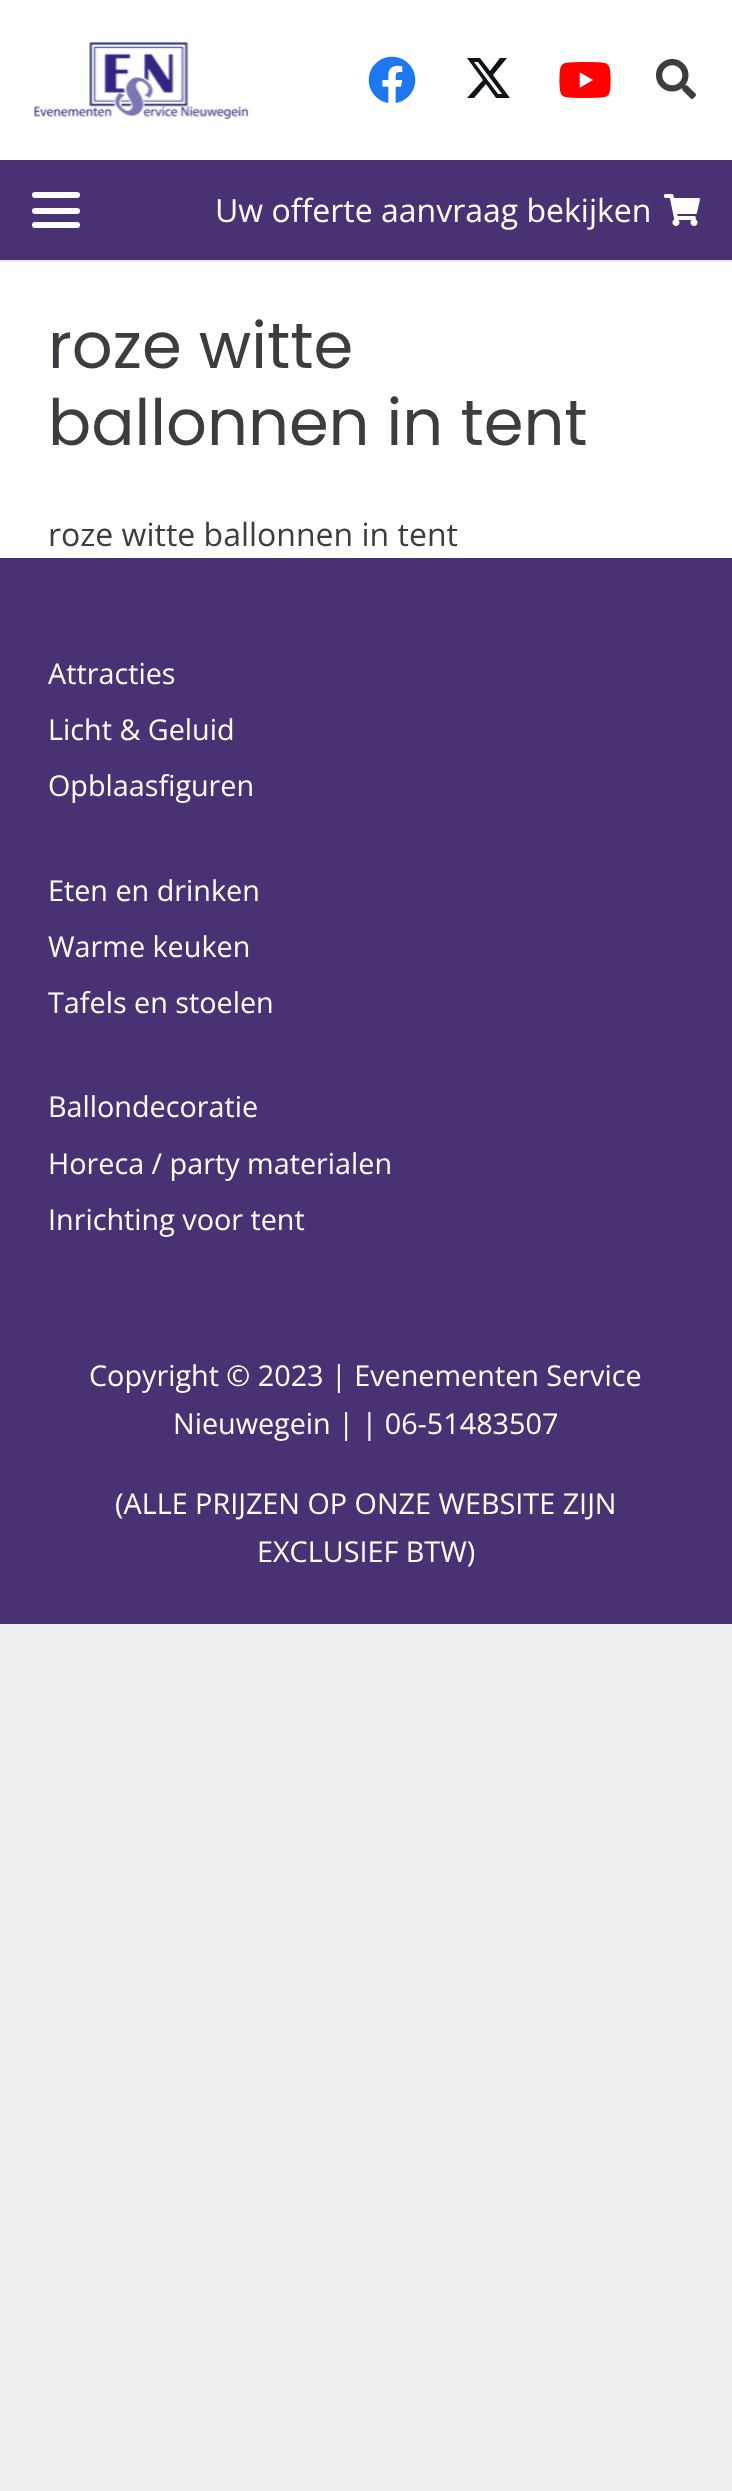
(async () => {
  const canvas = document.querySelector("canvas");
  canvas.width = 732;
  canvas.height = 2491;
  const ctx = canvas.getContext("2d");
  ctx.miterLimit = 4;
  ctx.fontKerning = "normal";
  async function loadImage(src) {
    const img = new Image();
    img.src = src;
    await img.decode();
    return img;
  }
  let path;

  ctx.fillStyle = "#eeeeee";
  ctx.fillRect(0, 0, 732, 2491);
  ctx.fillStyle = "#ffffff";
  ctx.fillRect(0, 0, 732, 558);
  ctx.drawImage(await loadImage("img/1.png"), 34, 42, 215, 77);
  ctx.drawImage(await loadImage("img/2.png"), 368, 56, 48, 47);
  ctx.fillStyle = "#0f1419";
  path = new Path2D("M500 58H507L493 75L510 98H496L486 84L474 98H467L483 80L467 58H480L490 71ZM498 94H502L478 62H474Z");
  ctx.fill(path);
  ctx.drawImage(await loadImage("img/3.png"), 559, 62, 52, 36);
  ctx.drawImage(await loadImage("img/4.png"), 656, 59, 40, 40);
  ctx.fillStyle = "#ebebeb";
  ctx.fillRect(0, 260, 732, 2);
  ctx.fillStyle = "#483274";
  ctx.fillRect(0, 160, 732, 100);
  ctx.fillStyle = "#ffffff";
  ctx.beginPath();
  ctx.roundRect(32, 208, 48, 6, 3);
  ctx.fill();
  ctx.beginPath();
  ctx.roundRect(32, 192, 48, 6, 3);
  ctx.fill();
  ctx.beginPath();
  ctx.roundRect(32, 222, 48, 6, 3);
  ctx.fill();
  ctx.drawImage(await loadImage("img/5.png"), 664, 194, 36, 32);
  ctx.fillStyle = "#483274";
  ctx.fillRect(0, 558, 732, 1066);
  ctx.font = "32px Open Sans";
  ctx.fillStyle = "#ffffff";
  ctx.fillText("Uw offerte aanvraag bekijken", 215, 222);
  ctx.font = "64px Poppins";
  ctx.fillStyle = "#3b3d40";
  ctx.fillText("roze witte", 48, 368);
  ctx.fillText("ballonnen in tent", 48, 445);
  ctx.font = "32px Open Sans";
  ctx.fillText("roze witte ballonnen in tent", 48, 546);
  ctx.font = "28.75px Open Sans";
  ctx.fillStyle = "#ffffff";
  for (const [text, x, y] of [
    ["Attracties", 48, 684],
    ["Licht & Geluid", 48, 740],
    ["Opblaasfiguren", 48, 796],
    ["Eten en drinken", 48, 901],
    ["Warme keuken", 48, 957],
    ["Tafels en stoelen", 48, 1013],
    ["Ballondecoratie", 48, 1117],
    ["Horeca / party materialen", 48, 1174],
    ["Inrichting voor tent", 48, 1230],
    ["Copyright © 2023 | Evenementen Service", 89, 1386],
    ["Nieuwegein | | 06-51483507", 173, 1434],
    ["(ALLE PRIJZEN OP ONZE WEBSITE ZIJN", 115, 1514],
    ["EXCLUSIEF BTW)", 257, 1562],
  ]) {
    ctx.fillText(text, x, y);
  }
})();
